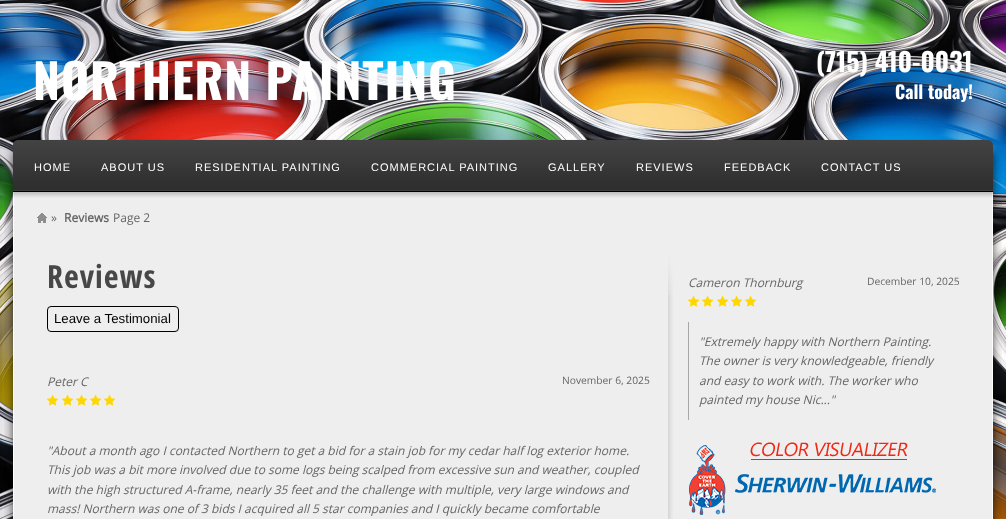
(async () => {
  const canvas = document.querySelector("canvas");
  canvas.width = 1006;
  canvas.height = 519;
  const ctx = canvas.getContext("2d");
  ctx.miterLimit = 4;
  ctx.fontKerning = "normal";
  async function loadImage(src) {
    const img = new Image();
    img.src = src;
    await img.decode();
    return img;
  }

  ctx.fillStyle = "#ffffff";
  ctx.fillRect(0, 0, 1006, 519);
  ctx.drawImage(await loadImage("img/1.png"), 0, 0, 1006, 519);
  ctx.drawImage(await loadImage("img/2.png"), 4, 143, 29, 55);
  ctx.drawImage(await loadImage("img/3.png"), 33, 139, 940, 59);
  ctx.drawImage(await loadImage("img/4.png"), 973, 139, 29, 59);
  ctx.drawImage(await loadImage("img/5.png"), 13, 140, 6, 58);
  ctx.drawImage(await loadImage("img/6.png"), 19, 140, 968, 58);
  ctx.drawImage(await loadImage("img/7.png"), 987, 140, 6, 58);
  ctx.drawImage(await loadImage("img/8.png"), 4, 198, 19, 321);
  ctx.fillStyle = "#eeeeee";
  ctx.fillRect(23, 198, 960, 321);
  ctx.drawImage(await loadImage("img/9.png"), 37, 213, 10, 10);
  ctx.beginPath();
  ctx.roundRect(47.5, 306.5, 131, 25, 3.5);
  ctx.strokeStyle = "#000000";
  ctx.stroke();
  ctx.drawImage(await loadImage("img/10.png"), 47, 395, 12, 11);
  ctx.drawImage(await loadImage("img/10.png"), 62, 395, 12, 11);
  ctx.drawImage(await loadImage("img/10.png"), 76, 395, 12, 11);
  ctx.drawImage(await loadImage("img/10.png"), 90, 395, 12, 11);
  ctx.drawImage(await loadImage("img/10.png"), 104, 395, 12, 11);
  ctx.drawImage(await loadImage("img/11.png"), 668, 295, 5, 224);
  ctx.drawImage(await loadImage("img/12.png"), 668, 243, 5, 52);
  ctx.drawImage(await loadImage("img/10.png"), 688, 296, 12, 11);
  ctx.drawImage(await loadImage("img/10.png"), 702, 296, 12, 11);
  ctx.drawImage(await loadImage("img/10.png"), 717, 296, 12, 11);
  ctx.drawImage(await loadImage("img/10.png"), 731, 296, 12, 11);
  ctx.drawImage(await loadImage("img/10.png"), 745, 296, 12, 11);
  ctx.fillStyle = "#a7a7a7";
  ctx.fillRect(688, 322, 1, 98);
  ctx.drawImage(await loadImage("img/13.png"), 689, 442, 247, 73);
  ctx.drawImage(await loadImage("img/14.png"), 983, 198, 19, 321);
  ctx.letterSpacing = "1px";
  ctx.font = "bold 48px Oswald";
  ctx.fillStyle = "#ffffff";
  ctx.fillText("NORTHERN PAINTING", 33, 100);
  ctx.letterSpacing = "0px";
  ctx.font = "bold 26px Oswald";
  ctx.fillText("(715) 410-0031", 816, 72);
  ctx.font = "bold 18px Oswald";
  ctx.fillText("Call today!", 895, 99);
  ctx.letterSpacing = "1px";
  ctx.font = "11px Liberation Sans";
  for (const [text, x, y] of [
    ["HOME", 34, 171],
    ["ABOUT US", 101, 171],
    ["RESIDENTIAL PAINTING", 195, 171],
    ["COMMERCIAL PAINTING", 371, 171],
    ["GALLERY", 548, 171],
    ["REVIEWS", 636, 171],
    ["FEEDBACK", 724, 171],
    ["CONTACT US", 821, 171],
  ]) {
    ctx.fillText(text, x, y);
  }
  ctx.letterSpacing = "0px";
  ctx.font = "12px Open Sans";
  ctx.fillStyle = "#666666";
  ctx.fillText("»", 51, 222);
  ctx.font = "bold 12px Open Sans";
  ctx.fillText("Reviews", 64, 222);
  ctx.font = "12px Open Sans";
  ctx.fillText("Page 2", 113, 222);
  ctx.letterSpacing = "1px";
  ctx.font = "bold 32px Open Sans Condensed";
  ctx.fillStyle = "#474747";
  ctx.fillText("Reviews", 47, 288);
  ctx.letterSpacing = "0px";
  ctx.font = "13.25px Liberation Sans";
  ctx.fillStyle = "#000000";
  ctx.fillText("Leave a Testimonial", 54, 323);
  ctx.font = "italic 12px Open Sans";
  ctx.fillStyle = "#666666";
  ctx.fillText("Peter C", 47, 386);
  ctx.font = "10.25px Open Sans";
  ctx.fillText("November 6, 2025", 562, 384);
  ctx.font = "italic 12px Open Sans";
  for (const [text, x, y] of [
    ["\"About a month ago I contacted Northern to get a bid for a stain job for my cedar half log exterior home.", 47, 455],
    ["This job was a bit more involved due to some logs being scalped from excessive sun and weather, coupled", 47, 474],
    ["with the high structured A-frame, nearly 35 feet and the challenge with multiple, very large windows and", 47, 494],
    ["mass! Northern was one of 3 bids I acquired all 5 star companies and I quickly became comfortable", 47, 513],
    ["Cameron Thornburg", 688, 287],
  ]) {
    ctx.fillText(text, x, y);
  }
  ctx.font = "10.25px Open Sans";
  ctx.fillText("December 10, 2025", 867, 285);
  ctx.font = "italic 12px Open Sans";
  for (const [text, x, y] of [
    ["\"Extremely happy with Northern Painting.", 699, 346],
    ["The owner is very knowledgeable, friendly", 699, 365],
    ["and easy to work with. The worker who", 699, 385],
    ["painted my house Nic...\"", 699, 404],
  ]) {
    ctx.fillText(text, x, y);
  }
})();
